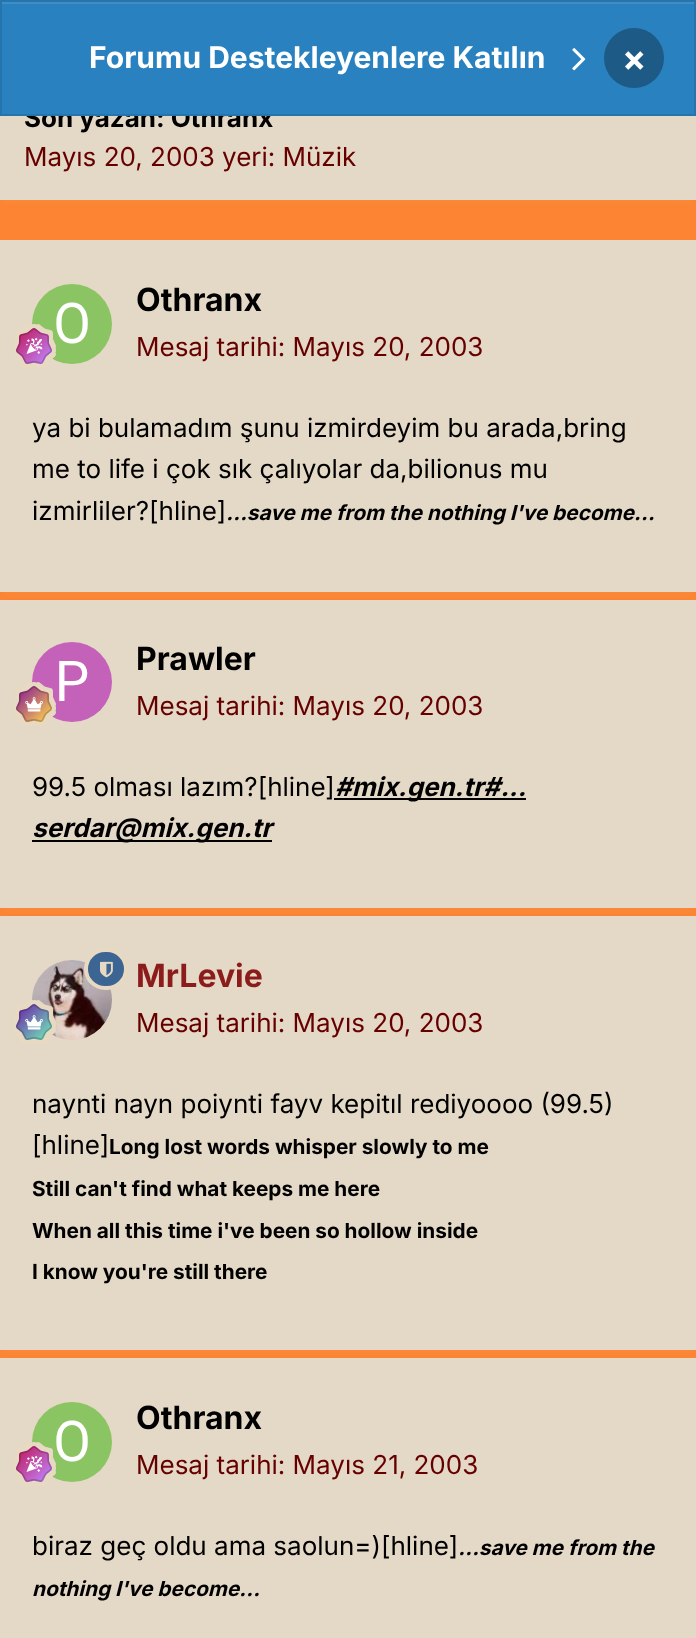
(async () => {
  const canvas = document.querySelector("canvas");
  canvas.width = 696;
  canvas.height = 1638;
  const ctx = canvas.getContext("2d");
  ctx.miterLimit = 4;
  ctx.fontKerning = "normal";
  async function loadImage(src) {
    const img = new Image();
    img.src = src;
    await img.decode();
    return img;
  }

  ctx.fillStyle = "#fc8432";
  ctx.fillRect(0, 0, 696, 1638);
  ctx.fillStyle = "rgba(227, 205, 156, 0.1)";
  ctx.filter = "blur(4px)";
  ctx.beginPath();
  ctx.rect(2, -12, 692, 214);
  ctx.fill();
  ctx.filter = "none";
  ctx.fillStyle = "#3e8ec5";
  ctx.fillRect(2, 2, 692, 2);
  ctx.fillStyle = "#e4d9c6";
  ctx.fillRect(0, 116, 696, 84);
  ctx.fillStyle = "rgba(227, 205, 156, 0.1)";
  ctx.filter = "blur(4px)";
  ctx.beginPath();
  ctx.rect(2, 246, 692, 348);
  ctx.fill();
  ctx.filter = "none";
  ctx.fillStyle = "#e4d9c6";
  ctx.fillRect(0, 240, 696, 352);
  ctx.fillStyle = "#e7d9c2";
  ctx.beginPath();
  ctx.arc(72, 324, 40, 0, Math.PI * 2);
  ctx.fill();
  ctx.drawImage(await loadImage("img/2.png"), 32, 284, 80, 80);
  ctx.drawImage(await loadImage("img/3.png"), 14, 324, 42, 44);
  ctx.fillStyle = "rgba(227, 205, 156, 0.1)";
  ctx.filter = "blur(4px)";
  ctx.beginPath();
  ctx.rect(2, 606, 692, 304);
  ctx.fill();
  ctx.filter = "none";
  ctx.fillStyle = "#e4d9c6";
  ctx.fillRect(0, 600, 696, 308);
  ctx.fillStyle = "#e7d9c2";
  ctx.beginPath();
  ctx.arc(72, 682, 40, 0, Math.PI * 2);
  ctx.fill();
  ctx.drawImage(await loadImage("img/4.png"), 32, 642, 80, 80);
  ctx.drawImage(await loadImage("img/5.png"), 14, 682, 42, 44);
  ctx.fillStyle = "#000000";
  ctx.fillRect(334, 798, 192, 2);
  ctx.fillRect(32, 840, 240, 2);
  ctx.fillStyle = "rgba(227, 205, 156, 0.1)";
  ctx.filter = "blur(4px)";
  ctx.beginPath();
  ctx.rect(2, 922, 692, 430);
  ctx.fill();
  ctx.filter = "none";
  ctx.fillStyle = "#e4d9c6";
  ctx.fillRect(0, 916, 696, 434);
  ctx.fillStyle = "#e7d9c2";
  ctx.beginPath();
  ctx.arc(72, 1000, 40, 0, Math.PI * 2);
  ctx.fill();
  ctx.drawImage(await loadImage("img/7.png"), 32, 960, 80, 80);
  ctx.fillStyle = "#3d6594";
  ctx.beginPath();
  ctx.roundRect(86, 950, 40, 38, 19);
  ctx.fill();
  ctx.strokeStyle = "#e7d9c2";
  ctx.lineWidth = 4;
  ctx.stroke();
  ctx.drawImage(await loadImage("img/6.png"), 100, 961, 13, 17);
  ctx.drawImage(await loadImage("img/8.png"), 14, 1000, 42, 44);
  ctx.fillStyle = "#e4d9c6";
  ctx.fillRect(0, 1358, 696, 280);
  ctx.fillStyle = "#e7d9c2";
  ctx.beginPath();
  ctx.arc(72, 1442, 40, 0, Math.PI * 2);
  ctx.fill();
  ctx.drawImage(await loadImage("img/2.png"), 32, 1402, 80, 80);
  ctx.drawImage(await loadImage("img/3.png"), 14, 1442, 42, 44);
  ctx.font = "bold 26px Inter";
  ctx.fillStyle = "#000000";
  ctx.fillText("Son yazan: Othranx", 24, 127);
  ctx.fillStyle = "#2981bf";
  ctx.fillRect(2, 4, 692, 110);
  ctx.strokeStyle = "#2574ac";
  ctx.lineWidth = 2;
  ctx.strokeRect(1, 1, 694, 114);
  ctx.fillStyle = "#1d5a86";
  ctx.beginPath();
  ctx.arc(634, 58, 30, 0, Math.PI * 2);
  ctx.fill();
  ctx.font = "bold 36px Inter";
  ctx.fillStyle = "#ffffff";
  ctx.fillText("×", 622, 71);
  ctx.drawImage(await loadImage("img/1.png"), 572, 48, 14, 23);
  ctx.font = "bold 30px Inter";
  ctx.fillText("Forumu Destekleyenlere Katılın", 89, 68);
  ctx.font = "26px Inter";
  ctx.fillStyle = "#660000";
  ctx.fillText("Mayıs 20, 2003 yeri: Müzik", 24, 166);
  ctx.font = "bold 32px Inter";
  ctx.fillStyle = "#000000";
  ctx.fillText("Othranx", 136, 311);
  ctx.font = "26px Inter";
  ctx.fillStyle = "#660000";
  ctx.fillText("Mesaj tarihi: Mayıs 20, 2003", 136, 356);
  ctx.fillStyle = "#000000";
  for (const [text, x, y] of [
    ["ya bi bulamadım şunu izmirdeyim bu arada,bring", 32, 437],
    ["me to life i çok sık çalıyolar da,bilionus mu", 32, 478],
    ["izmirliler?[hline]", 32, 520],
  ]) {
    ctx.fillText(text, x, y);
  }
  ctx.font = "italic bold 20.8px Inter";
  ctx.fillText("...save me from the nothing I've become...", 226, 520);
  ctx.font = "bold 32px Inter";
  ctx.fillText("Prawler", 136, 670);
  ctx.font = "26px Inter";
  ctx.fillStyle = "#660000";
  ctx.fillText("Mesaj tarihi: Mayıs 20, 2003", 136, 715);
  ctx.fillStyle = "#000000";
  ctx.fillText("99.5 olması lazım?[hline]", 32, 796);
  ctx.font = "italic bold 26px Inter";
  ctx.fillText("#mix.gen.tr#...", 335, 796);
  ctx.fillText("serdar@mix.gen.tr", 32, 837);
  ctx.font = "bold 32px Inter";
  ctx.fillStyle = "#8c1c1b";
  ctx.fillText("MrLevie", 136, 987);
  ctx.font = "26px Inter";
  ctx.fillStyle = "#660000";
  ctx.fillText("Mesaj tarihi: Mayıs 20, 2003", 136, 1032);
  ctx.fillStyle = "#000000";
  ctx.fillText("naynti nayn poiynti fayv kepitıl rediyoooo (99.5)", 32, 1113);
  ctx.fillText("[hline]", 32, 1154);
  ctx.font = "bold 20.8px Inter";
  for (const [text, x, y] of [
    ["Long lost words whisper slowly to me", 109, 1154],
    ["Still can't find what keeps me here", 32, 1196],
    ["When all this time i've been so hollow inside", 32, 1238],
    ["I know you're still there", 32, 1279],
  ]) {
    ctx.fillText(text, x, y);
  }
  ctx.font = "bold 32px Inter";
  ctx.fillText("Othranx", 136, 1429);
  ctx.font = "26px Inter";
  ctx.fillStyle = "#660000";
  ctx.fillText("Mesaj tarihi: Mayıs 21, 2003", 136, 1474);
  ctx.fillStyle = "#000000";
  ctx.fillText("biraz geç oldu ama saolun=)[hline]", 32, 1555);
  ctx.font = "italic bold 20.8px Inter";
  ctx.fillText("...save me from the", 458, 1555);
  ctx.fillText("nothing I've become...", 32, 1596);
})();
